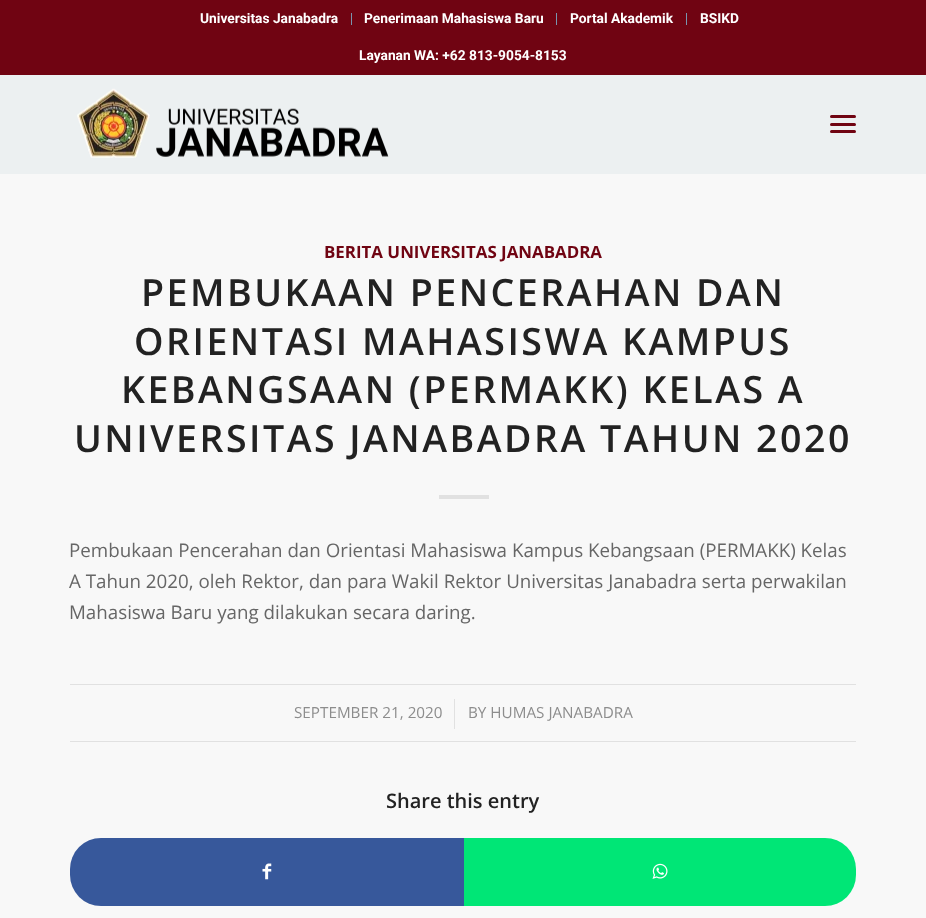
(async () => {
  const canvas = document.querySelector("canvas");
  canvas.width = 926;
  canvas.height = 918;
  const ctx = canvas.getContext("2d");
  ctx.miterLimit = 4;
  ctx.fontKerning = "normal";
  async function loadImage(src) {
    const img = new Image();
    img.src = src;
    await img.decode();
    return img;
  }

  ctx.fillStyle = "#f8f8f8";
  ctx.fillRect(0, 0, 926, 918);
  for (const [x, y, w, h, color] of [
    [0, 0, 926, 75, "#700412"],
    [351, 13, 1, 12, "#7995ad"],
    [556, 13, 1, 12, "#7995ad"],
    [686, 13, 1, 12, "#7995ad"],
    [0, 75, 926, 99, "#ecf0f1"],
  ]) {
    ctx.fillStyle = color;
    ctx.fillRect(x, y, w, h);
  }
  ctx.drawImage(await loadImage("img/1.png"), 77, 88, 312, 70);
  ctx.fillStyle = "#700412";
  ctx.beginPath();
  ctx.roundRect(830, 123, 26, 3, 1.5);
  ctx.fill();
  ctx.beginPath();
  ctx.roundRect(830, 115, 26, 3, 1.5);
  ctx.fill();
  ctx.beginPath();
  ctx.roundRect(830, 130, 26, 3, 1.5);
  ctx.fill();
  for (const [x, y, w, h, color] of [
    [439, 495, 50, 4, "#e1e1e1"],
    [70, 684, 786, 1, "#e1e1e1"],
    [70, 741, 786, 1, "#e1e1e1"],
    [454, 699, 1, 30, "#e1e1e1"],
  ]) {
    ctx.fillStyle = color;
    ctx.fillRect(x, y, w, h);
  }
  ctx.fillStyle = "#37589b";
  ctx.beginPath();
  ctx.roundRect(70, 838, 394, 68, [31, 0, 0, 31]);
  ctx.fill();
  ctx.drawImage(await loadImage("img/2.png"), 262, 863, 10, 17);
  ctx.fillStyle = "#00e676";
  ctx.beginPath();
  ctx.roundRect(464, 838, 392, 68, [0, 31, 31, 0]);
  ctx.fill();
  ctx.drawImage(await loadImage("img/3.png"), 652, 863, 16, 16);
  ctx.font = "bold 13.75px Roboto";
  ctx.fillStyle = "#ffffff";
  for (const [text, x, y] of [
    ["Universitas Janabadra", 200, 23],
    ["Penerimaan Mahasiswa Baru", 364, 23],
    ["Portal Akademik", 570, 23],
    ["BSIKD", 700, 23],
    ["Layanan WA: +62 813-9054-8153", 359, 60],
  ]) {
    ctx.fillText(text, x, y);
  }
  ctx.font = "bold 16.9px Open Sans";
  ctx.fillStyle = "#700412";
  ctx.fillText("BERITA UNIVERSITAS JANABADRA", 324, 258);
  ctx.letterSpacing = "2.5px";
  ctx.font = "600 37.5px Open Sans";
  ctx.fillStyle = "#222222";
  for (const [text, x, y] of [
    ["PEMBUKAAN PENCERAHAN DAN", 141, 306],
    ["ORIENTASI MAHASISWA KAMPUS", 134, 355],
    ["KEBANGSAAN (PERMAKK) KELAS A", 121, 403],
    ["UNIVERSITAS JANABADRA TAHUN 2020", 74, 452],
  ]) {
    ctx.fillText(text, x, y);
  }
  ctx.letterSpacing = "0px";
  ctx.font = "18.75px Open Sans";
  ctx.fillStyle = "#666666";
  for (const [text, x, y] of [
    ["Pembukaan Pencerahan dan Orientasi Mahasiswa Kampus Kebangsaan (PERMAKK) Kelas", 69, 557],
    ["A Tahun 2020, oleh Rektor, dan para Wakil Rektor Universitas Janabadra serta perwakilan", 69, 588],
    ["Mahasiswa Baru yang dilakukan secara daring.", 69, 619],
  ]) {
    ctx.fillText(text, x, y);
  }
  ctx.font = "15.25px Open Sans";
  ctx.fillStyle = "#8d8d8d";
  ctx.fillText("SEPTEMBER 21, 2020", 294, 718);
  ctx.fillText("BY HUMAS JANABADRA", 468, 718);
  ctx.font = "600 20px Open Sans";
  ctx.fillStyle = "#222222";
  ctx.fillText("Share this entry", 386, 808);
})();
